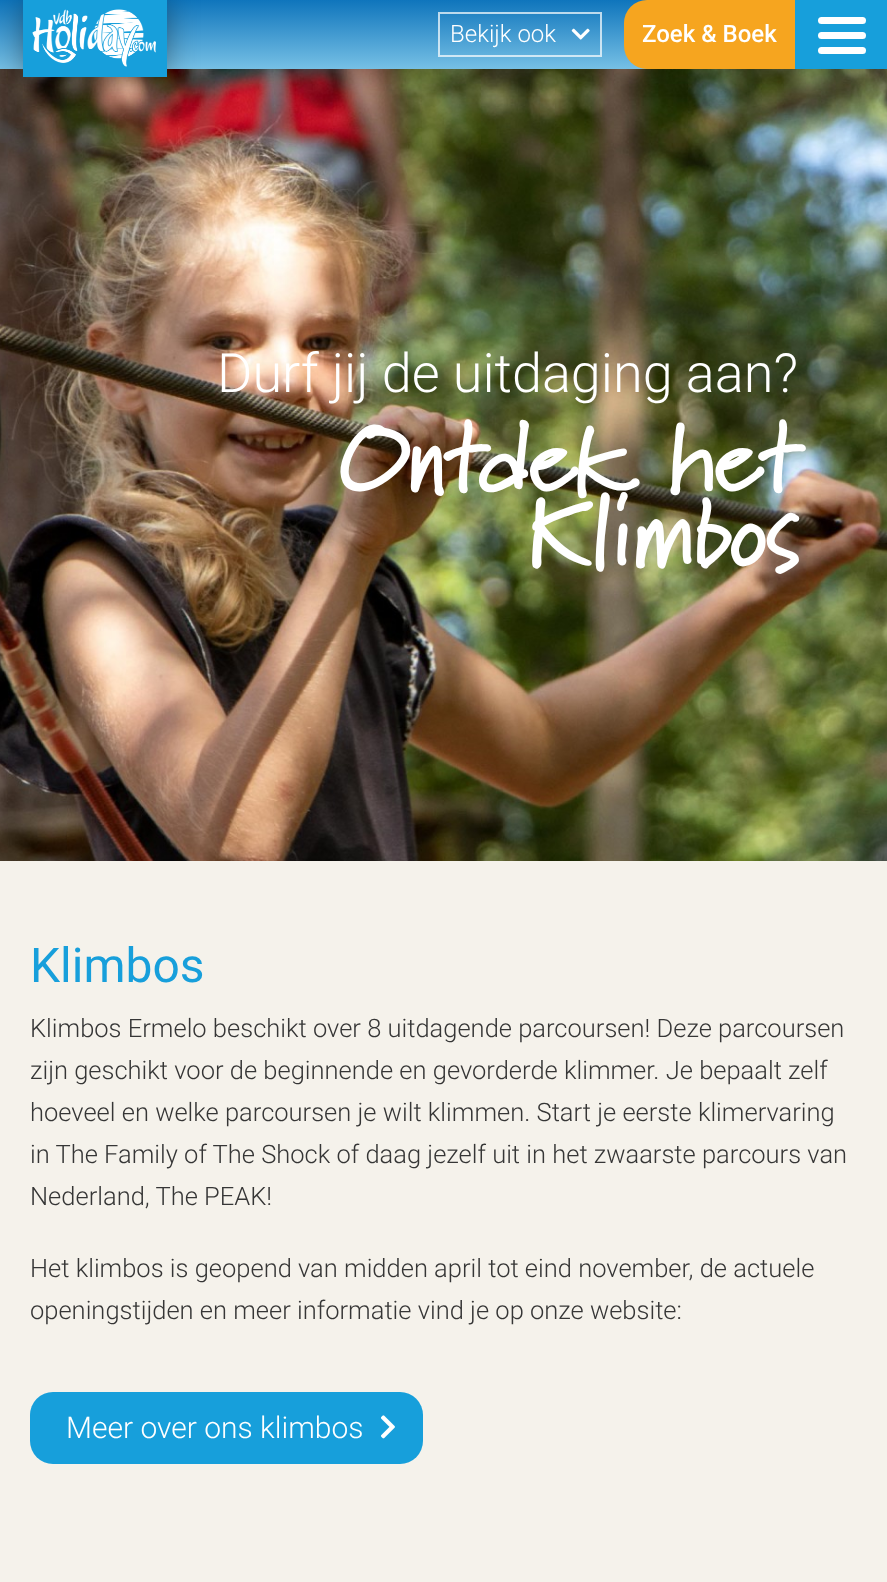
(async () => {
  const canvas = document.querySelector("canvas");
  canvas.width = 887;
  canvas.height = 1582;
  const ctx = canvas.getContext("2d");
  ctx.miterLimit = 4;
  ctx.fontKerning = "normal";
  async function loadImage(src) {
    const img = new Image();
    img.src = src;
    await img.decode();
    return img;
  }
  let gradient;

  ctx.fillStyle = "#f5f2eb";
  ctx.fillRect(0, 0, 887, 1582);
  ctx.drawImage(await loadImage("img/3.png"), 0, 69, 887, 792);
  ctx.fillStyle = "rgba(0, 0, 0, 0.14)";
  ctx.filter = "blur(10px)";
  ctx.beginPath();
  ctx.rect(0, 8, 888, 69);
  ctx.fill();
  ctx.filter = "none";
  gradient = ctx.createLinearGradient(444, 69, 444, 0);
  gradient.addColorStop(0, "#76c0e5");
  gradient.addColorStop(1, "#0f75bc");
  ctx.fillStyle = gradient;
  ctx.fillRect(0, 0, 647, 69);
  ctx.fillStyle = "rgba(0, 0, 0, 0.4)";
  ctx.filter = "blur(15px)";
  ctx.beginPath();
  ctx.rect(23, 0, 144, 77);
  ctx.fill();
  ctx.filter = "none";
  ctx.fillStyle = "#179fdb";
  ctx.fillRect(23, 0, 144, 77);
  ctx.drawImage(await loadImage("img/1.png"), 32, 9, 124, 58);
  ctx.fillRect(795, 0, 92, 69);
  ctx.fillStyle = "#ffffff";
  ctx.beginPath();
  ctx.roundRect(818, 17, 48, 7, 3.5);
  ctx.fill();
  ctx.beginPath();
  ctx.roundRect(818, 32, 48, 7, 3.5);
  ctx.fill();
  ctx.beginPath();
  ctx.roundRect(818, 47, 48, 7, 3.5);
  ctx.fill();
  ctx.strokeStyle = "rgba(255, 255, 255, 0.7)";
  ctx.lineWidth = 2;
  ctx.strokeRect(439, 13, 162, 43);
  ctx.drawImage(await loadImage("img/2.png"), 571, 28, 19, 12);
  ctx.fillStyle = "#f6a51f";
  ctx.beginPath();
  ctx.roundRect(624, 0, 171, 69, [23, 0, 0, 23]);
  ctx.fill();
  ctx.fillStyle = "#179fdb";
  ctx.beginPath();
  ctx.roundRect(30, 1392, 393, 72, 23);
  ctx.fill();
  ctx.drawImage(await loadImage("img/4.png"), 381, 1415, 14, 24);
  ctx.font = "300 24px Roboto";
  ctx.fillStyle = "#ffffff";
  ctx.fillText("Bekijk ook", 450, 42);
  ctx.font = "500 24px Roboto";
  ctx.fillText("Zoek & Boek", 642, 42);
  ctx.font = "300 54px Roboto";
  ctx.fillText("Durf jij de uitdaging aan?", 217, 392);
  ctx.font = "bold 97.5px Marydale";
  ctx.fillText("Ontdek het", 339, 491);
  ctx.fillText("Klimbos", 526, 566);
  ctx.font = "48px Roboto";
  ctx.fillStyle = "#179fdb";
  ctx.fillText("Klimbos", 30, 982);
  ctx.font = "300 25.5px Roboto";
  ctx.fillStyle = "#363636";
  for (const [text, x, y] of [
    ["Klimbos Ermelo beschikt over 8 uitdagende parcoursen! Deze parcoursen", 30, 1037],
    ["zijn geschikt voor de beginnende en gevorderde klimmer. Je bepaalt zelf", 30, 1079],
    ["hoeveel en welke parcoursen je wilt klimmen. Start je eerste klimervaring", 30, 1121],
    ["in The Family of The Shock of daag jezelf uit in het zwaarste parcours van", 30, 1163],
    ["Nederland, The PEAK!", 30, 1205],
    ["Het klimbos is geopend van midden april tot eind november, de actuele", 30, 1277],
    ["openingstijden en meer informatie vind je op onze website:", 30, 1319],
  ]) {
    ctx.fillText(text, x, y);
  }
  ctx.font = "300 30px Roboto";
  ctx.fillStyle = "#ffffff";
  ctx.fillText("Meer over ons klimbos", 66, 1438);
})();
